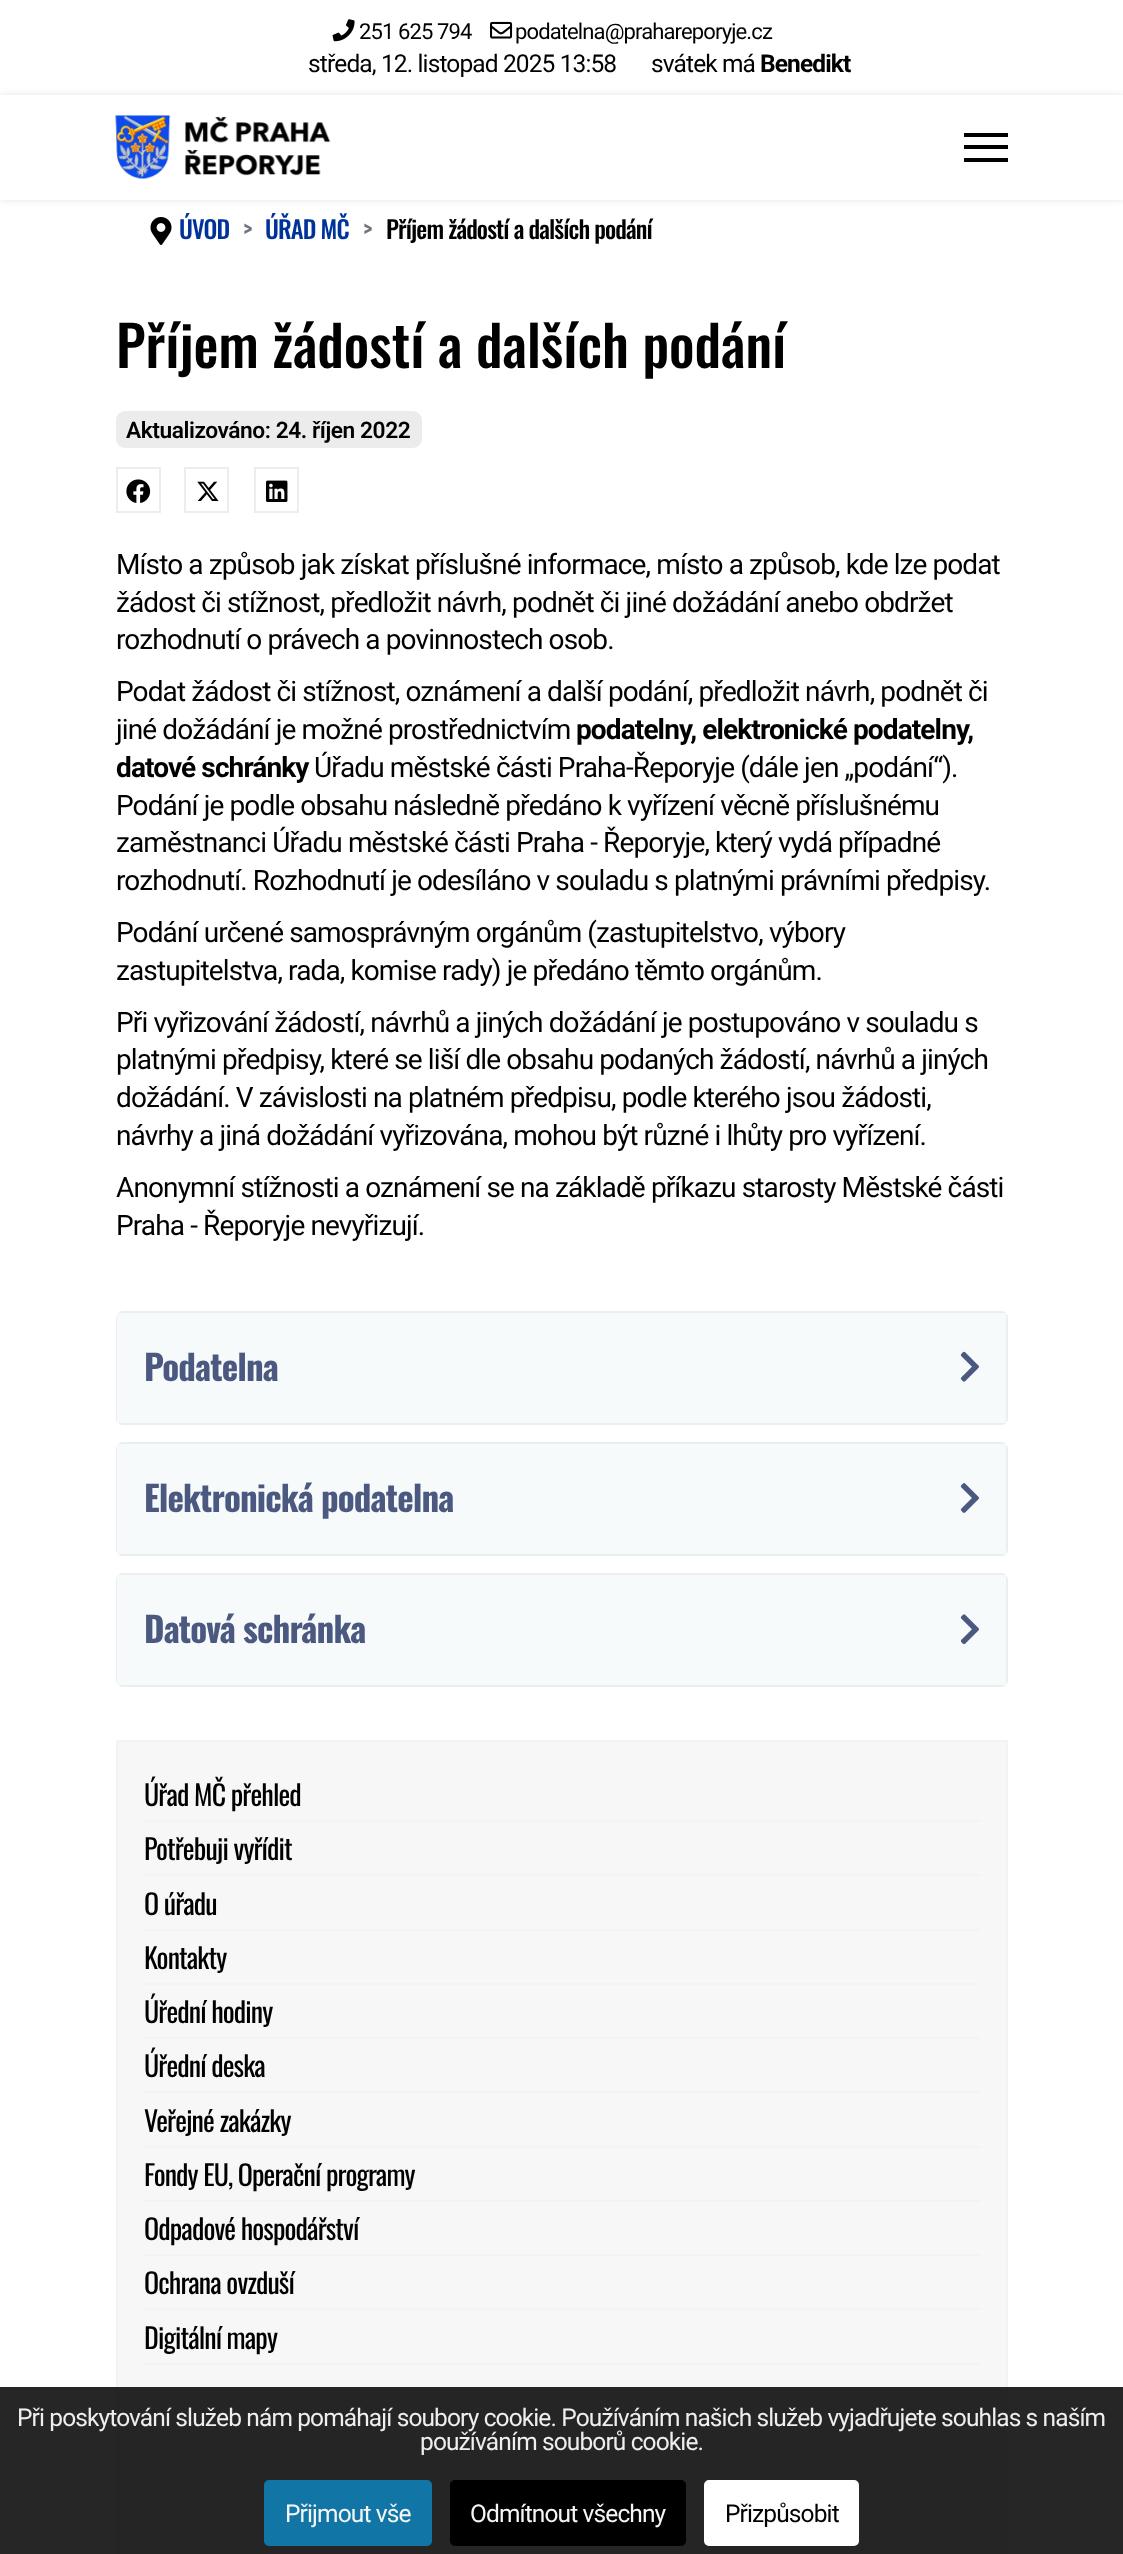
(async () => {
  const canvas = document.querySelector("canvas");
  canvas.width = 1123;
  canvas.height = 2554;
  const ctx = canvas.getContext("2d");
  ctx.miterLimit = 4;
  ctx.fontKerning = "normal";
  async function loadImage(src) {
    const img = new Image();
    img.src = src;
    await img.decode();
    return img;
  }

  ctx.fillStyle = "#ffffff";
  ctx.fillRect(0, 0, 1123, 2554);
  ctx.drawImage(await loadImage("img/1.png"), 332, 19, 23, 23);
  ctx.drawImage(await loadImage("img/2.png"), 490, 21, 23, 18);
  ctx.fillStyle = "rgba(0, 0, 0, 0.1)";
  ctx.filter = "blur(3.5px)";
  ctx.beginPath();
  ctx.rect(0, 95, 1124, 105);
  ctx.fill();
  ctx.filter = "none";
  ctx.fillStyle = "#ffffff";
  ctx.fillRect(0, 95, 1123, 105);
  ctx.drawImage(await loadImage("img/3.png"), 115, 115, 216, 64);
  for (const [x, y, w, h, color] of [
    [964, 133, 44, 4, "#000000"],
    [964, 145, 44, 4, "#000000"],
    [964, 158, 44, 4, "#000000"],
  ]) {
    ctx.fillStyle = color;
    ctx.fillRect(x, y, w, h);
  }
  ctx.drawImage(await loadImage("img/4.png"), 150, 217, 22, 28);
  ctx.fillStyle = "#ececec";
  ctx.beginPath();
  ctx.roundRect(116, 411, 306, 37, 9);
  ctx.fill();
  ctx.strokeStyle = "#ededed";
  ctx.lineWidth = 2;
  ctx.strokeRect(117, 468, 43, 44);
  ctx.drawImage(await loadImage("img/5.png"), 126, 479, 25, 24);
  ctx.strokeRect(185, 468, 43, 44);
  ctx.drawImage(await loadImage("img/6.png"), 197, 481, 22, 20);
  ctx.strokeRect(255, 468, 43, 44);
  ctx.drawImage(await loadImage("img/7.png"), 266, 480, 22, 22);
  ctx.beginPath();
  ctx.roundRect(117, 1312, 890, 112, 6);
  ctx.strokeStyle = "#e8eff1";
  ctx.stroke();
  ctx.fillStyle = "#f6fafb";
  ctx.fillRect(117, 1313, 889, 110);
  ctx.drawImage(await loadImage("img/8.png"), 960, 1351, 19, 31);
  ctx.beginPath();
  ctx.roundRect(117, 1443, 890, 112, 6);
  ctx.stroke();
  ctx.fillRect(117, 1444, 889, 110);
  ctx.drawImage(await loadImage("img/9.png"), 960, 1483, 19, 30);
  ctx.beginPath();
  ctx.roundRect(117, 1574, 890, 112, 6);
  ctx.stroke();
  ctx.fillRect(117, 1575, 889, 110);
  ctx.drawImage(await loadImage("img/10.png"), 960, 1614, 19, 31);
  ctx.fillStyle = "#f7f7f7";
  ctx.beginPath();
  ctx.rect(117, 1741, 890, 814);
  ctx.fill();
  ctx.strokeStyle = "#f3f3f3";
  ctx.stroke();
  for (const [x, y, w, h, color] of [
    [144, 1820, 836, 2, "#f3f3f3"],
    [144, 1874, 836, 2, "#f3f3f3"],
    [144, 1929, 836, 2, "#f3f3f3"],
    [144, 1983, 836, 2, "#f3f3f3"],
    [144, 2037, 836, 2, "#f3f3f3"],
    [144, 2091, 836, 2, "#f3f3f3"],
    [144, 2146, 836, 2, "#f3f3f3"],
    [144, 2200, 836, 2, "#f3f3f3"],
    [144, 2254, 836, 2, "#f3f3f3"],
    [144, 2308, 836, 2, "#f3f3f3"],
    [144, 2363, 836, 2, "#f3f3f3"],
    [144, 2417, 836, 2, "#f3f3f3"],
    [144, 2471, 836, 2, "#f3f3f3"],
    [144, 2525, 836, 2, "#f3f3f3"],
    [0, 2387, 1123, 167, "rgba(0, 0, 0, 0.85)"],
  ]) {
    ctx.fillStyle = color;
    ctx.fillRect(x, y, w, h);
  }
  ctx.fillStyle = "#1176a6";
  ctx.beginPath();
  ctx.roundRect(266, 2482, 164, 62, 3);
  ctx.fill();
  ctx.strokeStyle = "#1176a6";
  ctx.lineWidth = 4;
  ctx.stroke();
  ctx.fillStyle = "#000000";
  ctx.beginPath();
  ctx.roundRect(452, 2482, 232, 62, 3);
  ctx.fill();
  ctx.strokeStyle = "#000000";
  ctx.stroke();
  ctx.fillStyle = "#ffffff";
  ctx.beginPath();
  ctx.roundRect(706, 2482, 151, 62, 3);
  ctx.fill();
  ctx.strokeStyle = "#ffffff";
  ctx.stroke();
  ctx.letterSpacing = "-0.88px";
  ctx.font = "22px Roboto";
  ctx.fillStyle = "#000000";
  ctx.fillText("251 625 794", 359, 39);
  ctx.fillText("podatelna@prahareporyje.cz", 515, 39);
  ctx.font = "24.5px Roboto";
  ctx.fillText("středa, 12. listopad 2025 13:58", 308, 72);
  ctx.fillText("svátek má", 651, 72);
  ctx.font = "bold 24.5px Roboto";
  ctx.fillText("Benedikt", 760, 72);
  ctx.font = "500 24.5px Oswald";
  ctx.fillStyle = "#003399";
  ctx.fillText("ÚVOD", 179, 239);
  ctx.fillStyle = "#6c757d";
  ctx.fillText(">", 243, 239);
  ctx.fillStyle = "#003399";
  ctx.fillText("ÚŘAD MČ", 265, 239);
  ctx.fillStyle = "#6c757d";
  ctx.fillText(">", 363, 239);
  ctx.fillStyle = "#000000";
  ctx.fillText("Příjem žádostí a dalších podání", 386, 239);
  ctx.letterSpacing = "0px";
  ctx.font = "500 56px Oswald";
  ctx.fillText("Příjem žádostí a dalších podání", 116, 368);
  ctx.letterSpacing = "-0.45px";
  ctx.font = "600 22.75px Roboto";
  ctx.fillText("Aktualizováno: 24. říjen 2022", 126, 438);
  ctx.letterSpacing = "-0.88px";
  ctx.font = "28px Roboto";
  for (const [text, x, y] of [
    ["Místo a způsob jak získat příslušné informace, místo a způsob, kde lze podat", 116, 574],
    ["žádost či stížnost, předložit návrh, podnět či jiné dožádání anebo obdržet", 116, 612],
    ["rozhodnutí o právech a povinnostech osob.", 116, 649],
    ["Podat žádost či stížnost, oznámení a další podání, předložit návrh, podnět či", 116, 701],
    ["jiné dožádání je možné prostřednictvím", 116, 739],
  ]) {
    ctx.fillText(text, x, y);
  }
  ctx.font = "bold 28px Roboto";
  ctx.fillText("podatelny, elektronické podatelny,", 576, 739);
  ctx.fillText("datové schránky", 116, 777);
  ctx.font = "28px Roboto";
  for (const [text, x, y] of [
    ["Úřadu městské části Praha-Řeporyje (dále jen „podání“).", 314, 777],
    ["Podání je podle obsahu následně předáno k vyřízení věcně příslušnému", 116, 815],
    ["zaměstnanci Úřadu městské části Praha - Řeporyje, který vydá případné", 116, 852],
    ["rozhodnutí. Rozhodnutí je odesíláno v souladu s platnými právními předpisy.", 116, 890],
    ["Podání určené samosprávným orgánům (zastupitelstvo, výbory", 116, 942],
    ["zastupitelstva, rada, komise rady) je předáno těmto orgánům.", 116, 980],
    ["Při vyřizování žádostí, návrhů a jiných dožádání je postupováno v souladu s", 116, 1032],
    ["platnými předpisy, které se liší dle obsahu podaných žádostí, návrhů a jiných", 116, 1069],
    ["dožádání. V závislosti na platném předpisu, podle kterého jsou žádosti,", 116, 1107],
    ["návrhy a jiná dožádání vyřizována, mohou být různé i lhůty pro vyřízení.", 116, 1145],
    ["Anonymní stížnosti a oznámení se na základě příkazu starosty Městské části", 116, 1197],
    ["Praha - Řeporyje nevyřizují.", 116, 1235],
  ]) {
    ctx.fillText(text, x, y);
  }
  ctx.font = "bold 35px Oswald";
  ctx.fillStyle = "#4b5981";
  for (const [text, x, y] of [
    ["Podatelna", 144, 1381],
    ["Elektronická podatelna", 144, 1512],
    ["Datová schránka", 144, 1643],
  ]) {
    ctx.fillText(text, x, y);
  }
  ctx.font = "28px Oswald";
  ctx.fillStyle = "#000000";
  for (const [text, x, y] of [
    ["Úřad MČ přehled", 144, 1806],
    ["Potřebuji vyřídit", 144, 1860],
    ["O úřadu", 144, 1915],
    ["Kontakty", 144, 1969],
    ["Úřední hodiny", 144, 2023],
    ["Úřední deska", 144, 2077],
    ["Veřejné zakázky", 144, 2132],
    ["Fondy EU, Operační programy", 144, 2186],
    ["Odpadové hospodářství", 144, 2240],
    ["Ochrana ovzduší", 144, 2294],
    ["Digitální mapy", 144, 2349],
  ]) {
    ctx.fillText(text, x, y);
  }
  ctx.font = "24.5px Roboto";
  ctx.fillStyle = "#eeeeee";
  ctx.fillText("Při poskytování služeb nám pomáhají soubory cookie. Používáním našich služeb vyjadřujete souhlas s naším", 17, 2426);
  ctx.fillText("používáním souborů cookie.", 420, 2450);
  ctx.fillStyle = "#f5f5f5";
  ctx.fillText("Přijmout vše", 285, 2522);
  ctx.fillText("Odmítnout všechny", 470, 2522);
  ctx.fillStyle = "#000000";
  ctx.fillText("Přizpůsobit", 725, 2522);
})();
